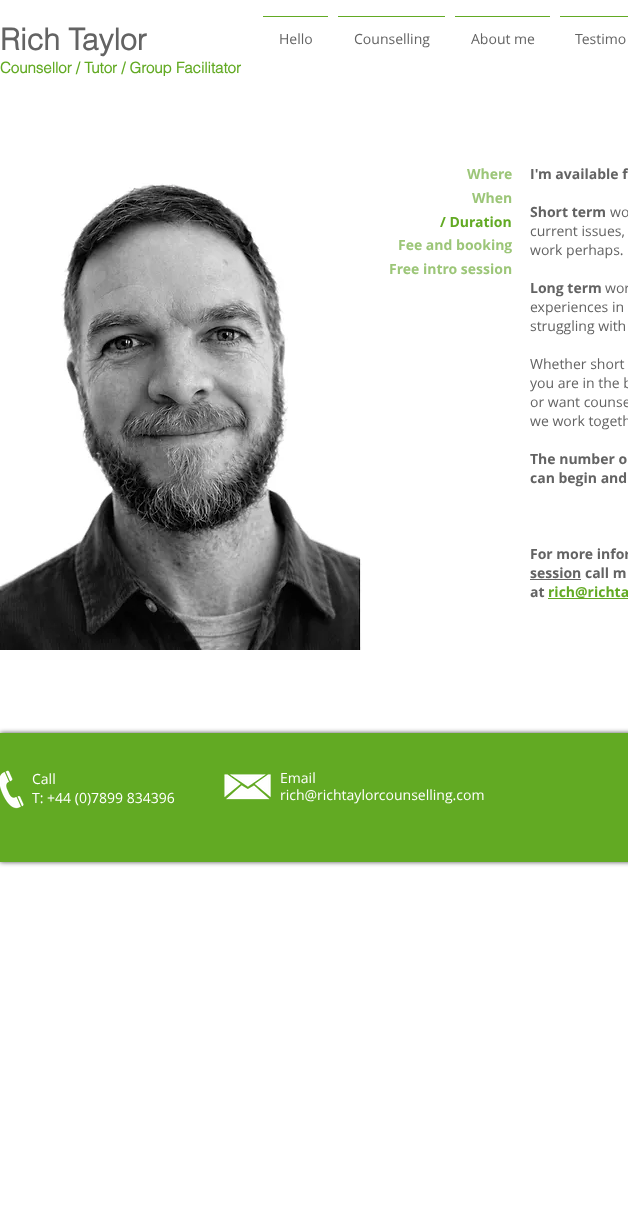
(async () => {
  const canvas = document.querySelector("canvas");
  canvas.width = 628;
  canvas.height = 1229;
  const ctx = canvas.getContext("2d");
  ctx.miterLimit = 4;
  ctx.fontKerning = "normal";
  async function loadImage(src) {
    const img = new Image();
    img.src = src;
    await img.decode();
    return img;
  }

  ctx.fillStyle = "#ffffff";
  ctx.fillRect(0, 0, 628, 1229);
  for (const [x, y, w, h, color] of [
    [263, 16, 65, 1, "#62aa23"],
    [338, 16, 107, 1, "#62aa23"],
    [455, 16, 95, 1, "#62aa23"],
    [560, 16, 68, 1, "#62aa23"],
  ]) {
    ctx.fillStyle = color;
    ctx.fillRect(x, y, w, h);
  }
  ctx.drawImage(await loadImage("img/1.png"), 0, 183, 362, 467);
  ctx.fillStyle = "#636363";
  ctx.fillRect(530, 579, 51, 1);
  ctx.fillStyle = "#62aa23";
  ctx.fillRect(548, 598, 80, 1);
  ctx.fillStyle = "rgba(0, 0, 0, 0.7)";
  ctx.filter = "blur(2.5px)";
  ctx.beginPath();
  ctx.rect(0, 733, 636, 129);
  ctx.fill();
  ctx.filter = "none";
  ctx.fillStyle = "#62aa23";
  ctx.fillRect(0, 733, 628, 129);
  ctx.drawImage(await loadImage("img/2.png"), 0, 770, 24, 39);
  ctx.drawImage(await loadImage("img/3.png"), 224, 774, 47, 26);
  ctx.font = "bold 30px helvetica";
  ctx.fillStyle = "#636363";
  ctx.fillText("Rich Taylor", 0, 50);
  ctx.font = "bold 15px helvetica";
  ctx.fillStyle = "#62aa23";
  ctx.fillText("Counsellor / Tutor / Group Facilitator", 0, 73);
  ctx.font = "14px Open Sans";
  ctx.fillStyle = "#636363";
  for (const [text, x, y] of [
    ["Hello", 279, 44],
    ["Counselling", 354, 44],
    ["About me", 471, 44],
    ["Testimo", 575, 44],
  ]) {
    ctx.fillText(text, x, y);
  }
  ctx.font = "bold 14px Open Sans";
  ctx.fillStyle = "#9cc678";
  ctx.fillText("Where", 467, 179);
  ctx.fillText("When", 472, 203);
  ctx.fillStyle = "#62aa23";
  ctx.fillText("/ Duration", 440, 227);
  ctx.fillStyle = "#9cc678";
  ctx.fillText("Fee and booking", 398, 250);
  ctx.fillText("Free intro session", 389, 274);
  ctx.fillStyle = "#636363";
  ctx.fillText("I'm available f", 530, 179);
  ctx.fillText("Short term", 530, 217);
  ctx.font = "14px Open Sans";
  for (const [text, x, y] of [
    ["wo", 610, 217],
    ["current issues,", 530, 236],
    ["work perhaps.", 530, 255],
  ]) {
    ctx.fillText(text, x, y);
  }
  ctx.font = "bold 14px Open Sans";
  ctx.fillText("Long term", 530, 293);
  ctx.font = "14px Open Sans";
  for (const [text, x, y] of [
    ["wor", 605, 293],
    ["experiences in", 530, 312],
    ["struggling with", 530, 331],
    ["Whether short", 530, 369],
    ["you are in the b", 530, 388],
    ["or want counse", 530, 407],
    ["we work togeth", 530, 426],
  ]) {
    ctx.fillText(text, x, y);
  }
  ctx.font = "bold 14px Open Sans";
  for (const [text, x, y] of [
    ["The number o", 530, 464],
    ["can begin and", 530, 483],
    ["For more infor", 530, 559],
    ["session call m", 530, 578],
    ["at", 530, 597],
  ]) {
    ctx.fillText(text, x, y);
  }
  ctx.fillStyle = "#62aa23";
  ctx.fillText("rich@richta", 548, 597);
  ctx.font = "14px Open Sans";
  ctx.fillStyle = "#ffffff";
  for (const [text, x, y] of [
    ["Call", 32, 784],
    ["T: +44 (0)7899 834396", 32, 803],
    ["Email", 280, 783],
    ["rich@richtaylorcounselling.com", 280, 800],
  ]) {
    ctx.fillText(text, x, y);
  }
})();
